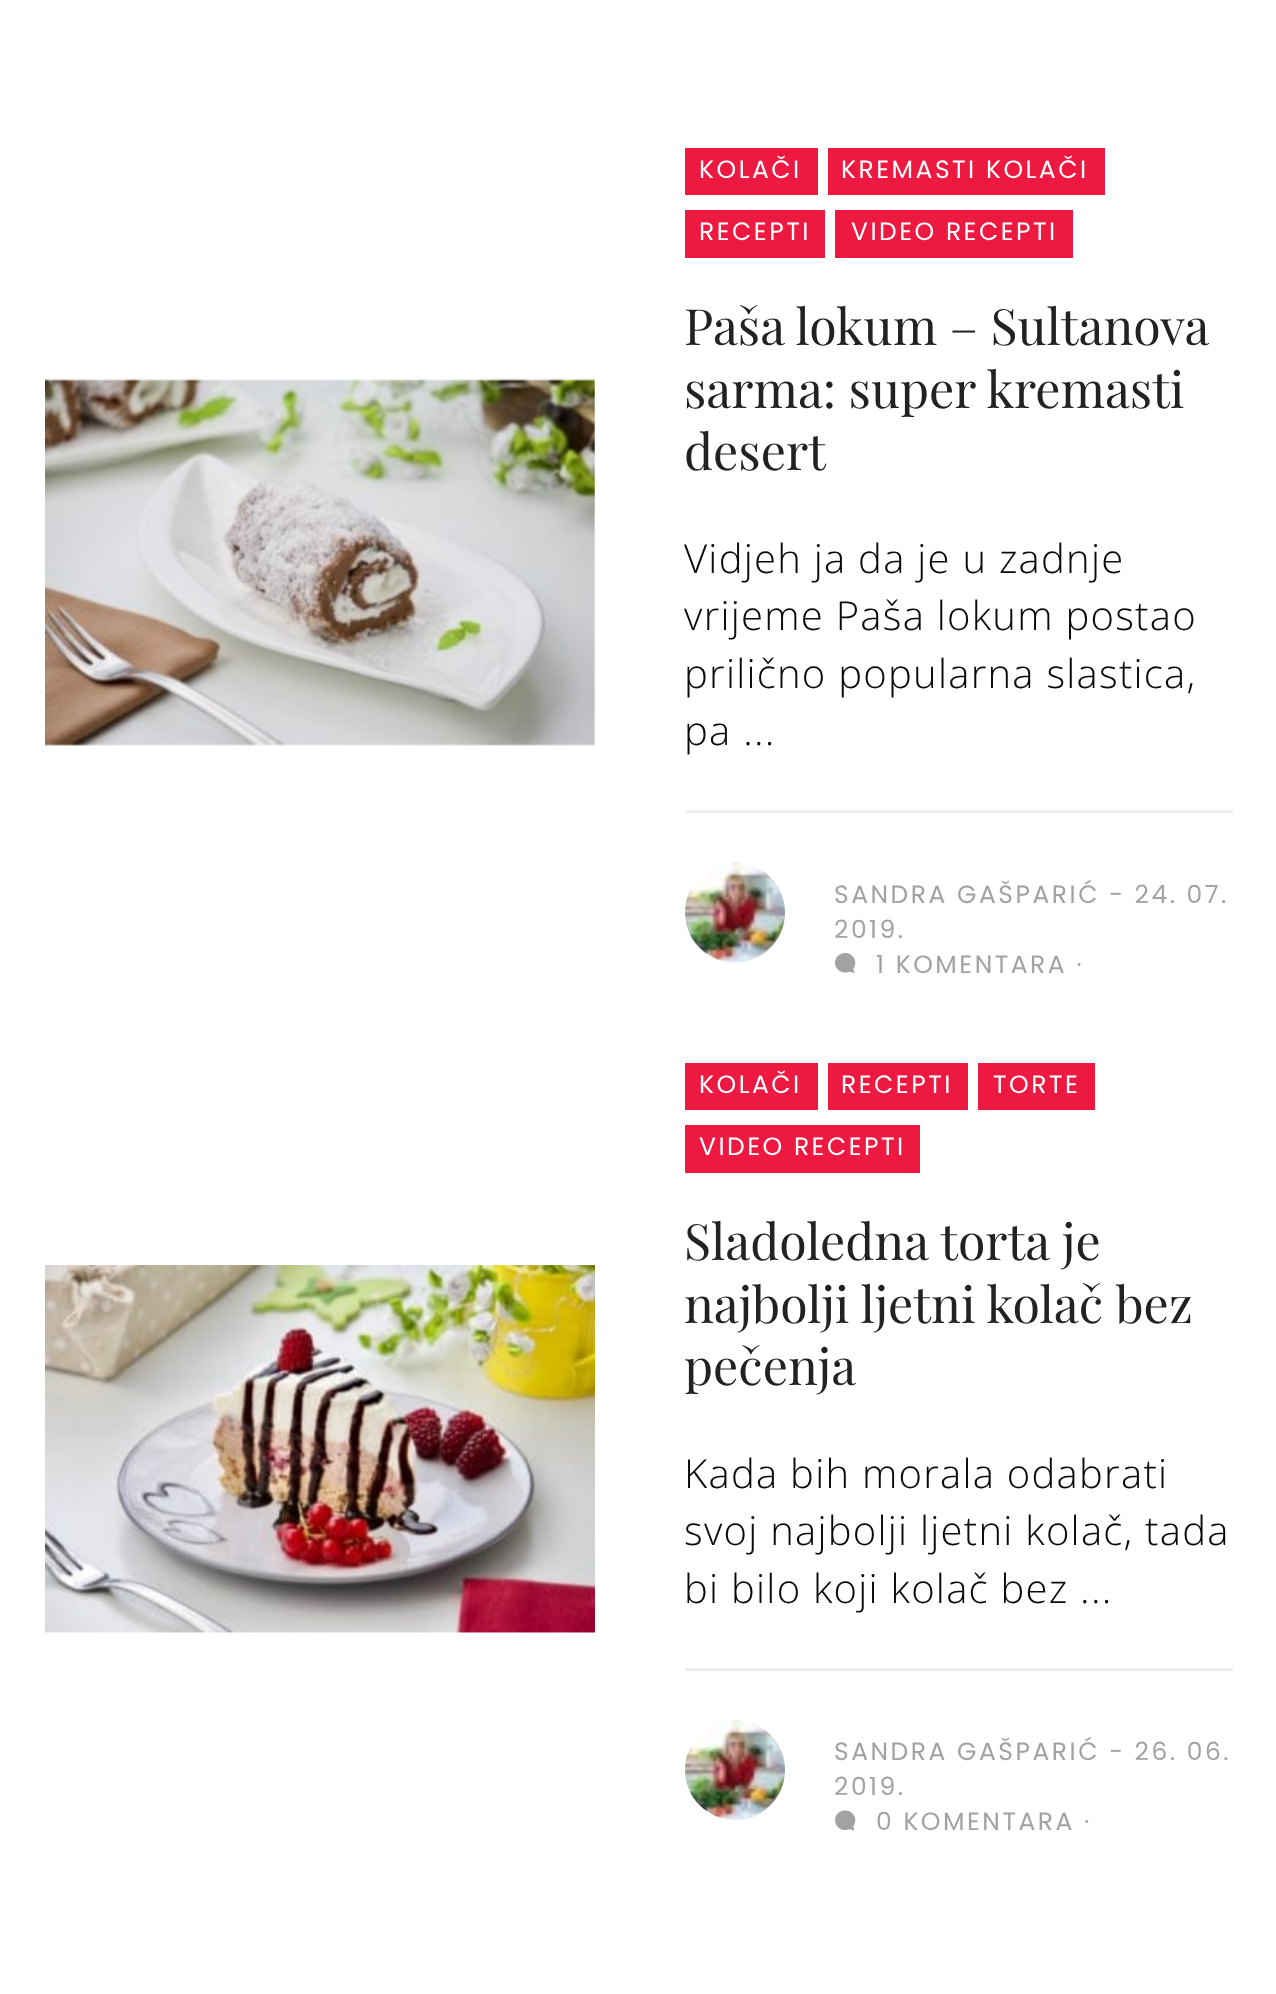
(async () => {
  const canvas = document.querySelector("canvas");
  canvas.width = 1276;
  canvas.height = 1994;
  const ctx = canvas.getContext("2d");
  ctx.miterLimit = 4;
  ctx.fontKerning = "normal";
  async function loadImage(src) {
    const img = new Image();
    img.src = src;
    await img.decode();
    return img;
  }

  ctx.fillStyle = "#ffffff";
  ctx.fillRect(0, 0, 1276, 1994);
  ctx.drawImage(await loadImage("img/1.png"), 45, 378, 550, 368);
  for (const [x, y, w, h, color] of [
    [685, 148, 133, 47, "#ed1940"],
    [828, 148, 277, 47, "#ed1940"],
    [685, 210, 140, 48, "#ed1940"],
    [835, 210, 238, 48, "#ed1940"],
    [685, 810, 548, 3, "#eeeeee"],
  ]) {
    ctx.fillStyle = color;
    ctx.fillRect(x, y, w, h);
  }
  ctx.drawImage(await loadImage("img/2.png"), 685, 862, 100, 101);
  ctx.drawImage(await loadImage("img/3.png"), 835, 953, 21, 21);
  ctx.drawImage(await loadImage("img/4.png"), 45, 1265, 550, 368);
  for (const [x, y, w, h, color] of [
    [685, 1063, 133, 47, "#ed1940"],
    [828, 1063, 140, 47, "#ed1940"],
    [978, 1063, 117, 47, "#ed1940"],
    [685, 1125, 235, 48, "#ed1940"],
    [685, 1668, 548, 3, "#eeeeee"],
  ]) {
    ctx.fillStyle = color;
    ctx.fillRect(x, y, w, h);
  }
  ctx.drawImage(await loadImage("img/5.png"), 685, 1720, 100, 100);
  ctx.drawImage(await loadImage("img/6.png"), 835, 1810, 21, 21);
  ctx.letterSpacing = "2.5px";
  ctx.font = "25px Poppins";
  ctx.fillStyle = "#ffffff";
  for (const [text, x, y] of [
    ["KOLAČI", 699, 178],
    ["KREMASTI KOLAČI", 841, 178],
    ["RECEPTI", 699, 240],
    ["VIDEO RECEPTI", 851, 240],
  ]) {
    ctx.fillText(text, x, y);
  }
  ctx.letterSpacing = "0px";
  ctx.font = "50px Playfair Display";
  ctx.fillStyle = "#222222";
  for (const [text, x, y] of [
    ["Paša lokum – Sultanova", 684, 345],
    ["sarma: super kremasti", 684, 408],
    ["desert", 684, 470],
  ]) {
    ctx.fillText(text, x, y);
  }
  ctx.letterSpacing = "1.25px";
  ctx.font = "300 40px Open Sans";
  ctx.fillStyle = "#0a0a0a";
  for (const [text, x, y] of [
    ["Vidjeh ja da je u zadnje", 684, 573],
    ["vrijeme Paša lokum postao", 684, 630],
    ["prilično popularna slastica,", 684, 688],
    ["pa ...", 684, 745],
  ]) {
    ctx.fillText(text, x, y);
  }
  ctx.letterSpacing = "2.5px";
  ctx.font = "25px Poppins";
  ctx.fillStyle = "#a2a2a2";
  for (const [text, x, y] of [
    ["SANDRA GAŠPARIĆ - 24. 07.", 834, 903],
    ["2019.", 834, 938],
    ["1 KOMENTARA ·", 876, 973],
  ]) {
    ctx.fillText(text, x, y);
  }
  ctx.fillStyle = "#ffffff";
  for (const [text, x, y] of [
    ["KOLAČI", 699, 1093],
    ["RECEPTI", 841, 1093],
    ["TORTE", 993, 1093],
    ["VIDEO RECEPTI", 699, 1155],
  ]) {
    ctx.fillText(text, x, y);
  }
  ctx.letterSpacing = "0px";
  ctx.font = "50px Playfair Display";
  ctx.fillStyle = "#222222";
  for (const [text, x, y] of [
    ["Sladoledna torta je", 684, 1260],
    ["najbolji ljetni kolač bez", 684, 1323],
    ["pečenja", 684, 1385],
  ]) {
    ctx.fillText(text, x, y);
  }
  ctx.letterSpacing = "1.25px";
  ctx.font = "300 40px Open Sans";
  ctx.fillStyle = "#0a0a0a";
  for (const [text, x, y] of [
    ["Kada bih morala odabrati", 684, 1488],
    ["svoj najbolji ljetni kolač, tada", 684, 1545],
    ["bi bilo koji kolač bez ...", 684, 1603],
  ]) {
    ctx.fillText(text, x, y);
  }
  ctx.letterSpacing = "2.5px";
  ctx.font = "25px Poppins";
  ctx.fillStyle = "#a2a2a2";
  for (const [text, x, y] of [
    ["SANDRA GAŠPARIĆ - 26. 06.", 834, 1760],
    ["2019.", 834, 1795],
    ["0 KOMENTARA ·", 876, 1830],
  ]) {
    ctx.fillText(text, x, y);
  }
})();
